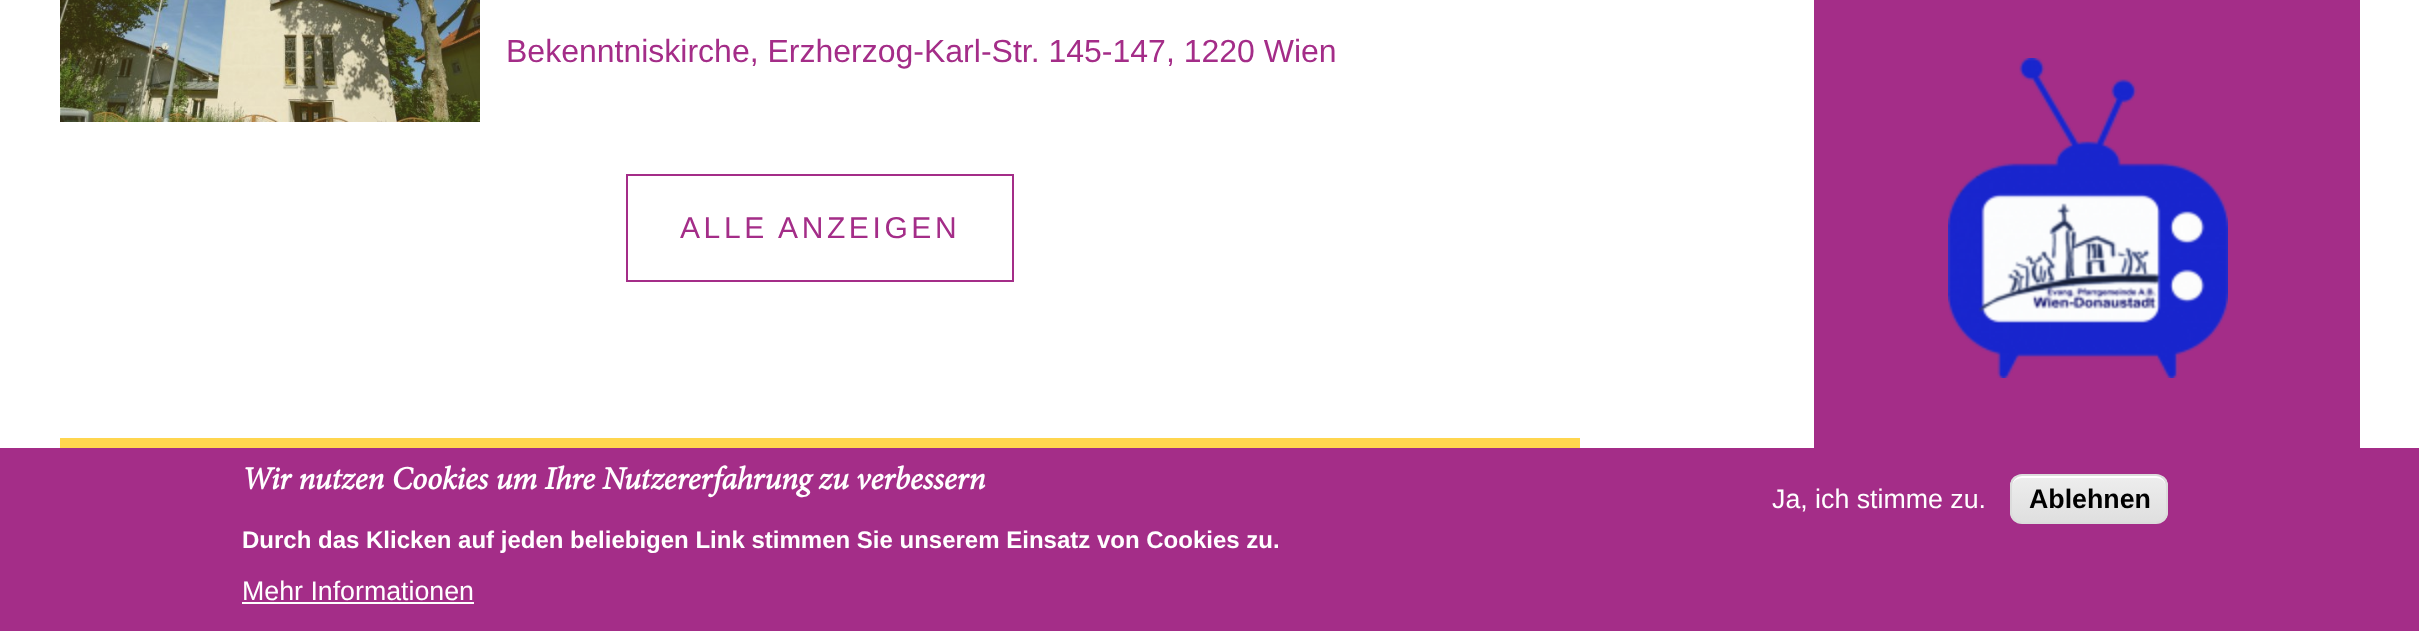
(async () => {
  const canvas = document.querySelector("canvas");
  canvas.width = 2419;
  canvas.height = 631;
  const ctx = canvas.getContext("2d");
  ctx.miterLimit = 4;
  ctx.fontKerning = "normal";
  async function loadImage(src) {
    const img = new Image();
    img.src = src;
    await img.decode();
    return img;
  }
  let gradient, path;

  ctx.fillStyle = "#ffffff";
  ctx.fillRect(0, 0, 2419, 631);
  ctx.drawImage(await loadImage("img/1.png"), 60, 0, 420, 122);
  ctx.strokeStyle = "#a42d88";
  ctx.lineWidth = 2;
  ctx.strokeRect(627, 175, 386, 106);
  ctx.fillStyle = "#ffd64f";
  ctx.fillRect(60, 438, 1520, 10);
  ctx.fillStyle = "#a42d88";
  ctx.fillRect(1814, 0, 546, 448);
  ctx.drawImage(await loadImage("img/2.png"), 1948, 58, 280, 320);
  ctx.fillRect(0, 448, 2419, 183);
  ctx.fillStyle = "#ffffff";
  ctx.fillRect(242, 602, 232, 2);
  ctx.save();
  ctx.beginPath();
  ctx.roundRect(2010, 474, 158, 50, 12);
  ctx.clip();
  gradient = ctx.createLinearGradient(2089, 476, 2089, 522);
  gradient.addColorStop(0.05, "#ededed");
  gradient.addColorStop(1, "#dfdfdf");
  ctx.fillStyle = gradient;
  ctx.fillRect(2010, 476, 158, 46);
  ctx.restore();
  path = new Path2D("M2022 478H2156C2162 478 2166 482 2166 488C2166 470 2146 476 2134 476H2044C2032 476 2012 470 2012 488C2012 482 2016 478 2022 478Z");
  ctx.fill(path);
  ctx.beginPath();
  ctx.roundRect(2011, 475, 156, 48, 11);
  ctx.strokeStyle = "#dcdcdc";
  ctx.stroke();
  ctx.font = "32px Liberation Sans";
  ctx.fillStyle = "#a42d88";
  ctx.fillText("Bekenntniskirche, Erzherzog-Karl-Str. 145-147, 1220 Wien", 506, 62);
  ctx.letterSpacing = "3.6px";
  ctx.font = "30px Liberation Sans";
  ctx.fillText("ALLE ANZEIGEN", 680, 238);
  ctx.letterSpacing = "0px";
  ctx.font = "italic bold 32px Minion";
  ctx.fillStyle = "#ffffff";
  ctx.fillText("Wir nutzen Cookies um Ihre Nutzererfahrung zu verbessern", 242, 489);
  ctx.font = "bold 24px Liberation Sans";
  ctx.fillText("Durch das Klicken auf jeden beliebigen Link stimmen Sie unserem Einsatz von Cookies zu.", 242, 548);
  ctx.font = "26.75px Liberation Sans";
  ctx.fillText("Mehr Informationen", 242, 600);
  ctx.fillText("Ja, ich stimme zu.", 1772, 508);
  ctx.font = "bold 26.75px Liberation Sans";
  ctx.fillStyle = "#000000";
  ctx.fillText("Ablehnen", 2029, 508);
})();
